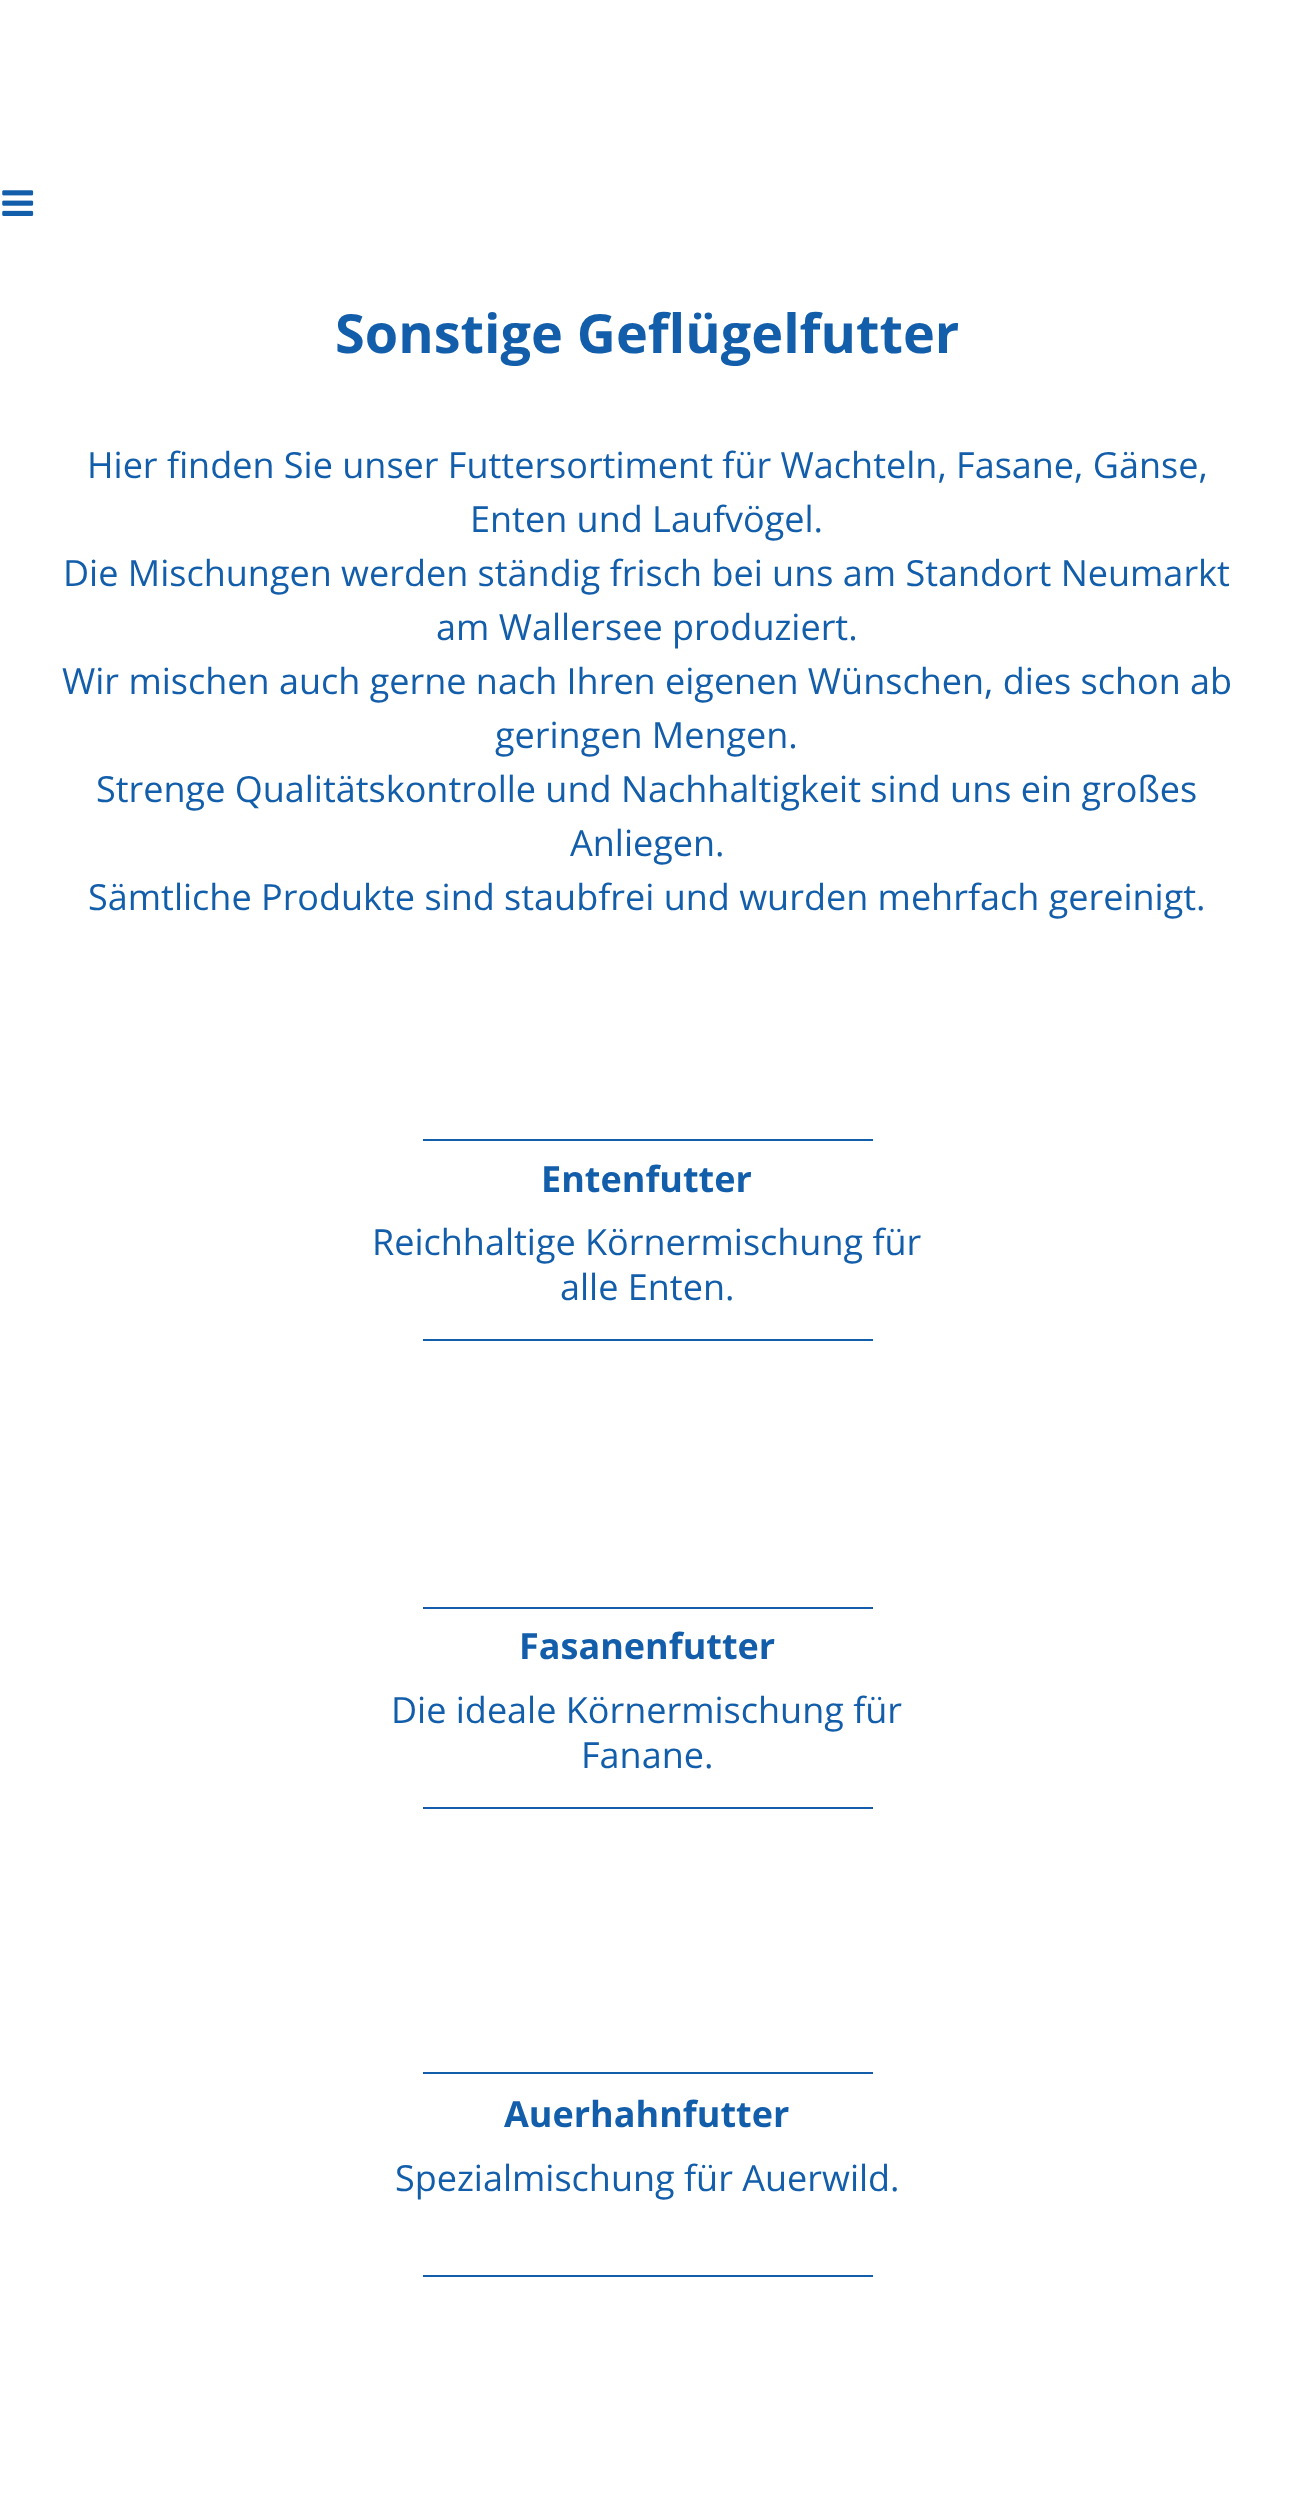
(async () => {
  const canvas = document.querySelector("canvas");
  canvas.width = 1292;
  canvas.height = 2505;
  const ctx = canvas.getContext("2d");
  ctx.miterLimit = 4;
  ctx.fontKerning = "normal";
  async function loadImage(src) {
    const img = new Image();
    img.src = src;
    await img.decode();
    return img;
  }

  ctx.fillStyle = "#ffffff";
  ctx.fillRect(0, 0, 1292, 2505);
  ctx.drawImage(await loadImage("img/1.png"), 2, 190, 32, 26);
  for (const [x, y, w, h, color] of [
    [423, 1139, 450, 2, "#135eab"],
    [423, 1339, 450, 2, "#135eab"],
    [423, 1607, 450, 2, "#135eab"],
    [423, 1807, 450, 2, "#135eab"],
    [423, 2072, 450, 2, "#135eab"],
    [423, 2275, 450, 2, "#135eab"],
  ]) {
    ctx.fillStyle = color;
    ctx.fillRect(x, y, w, h);
  }
  ctx.font = "bold 54px Open Sans";
  ctx.fillText("Sonstige Geflügelfutter", 335, 353);
  ctx.font = "36px Open Sans";
  for (const [text, x, y] of [
    ["Hier finden Sie unser Futtersortiment für Wachteln, Fasane, Gänse,", 87, 478],
    ["Enten und Laufvögel.", 470, 532],
    ["Die Mischungen werden ständig frisch bei uns am Standort Neumarkt", 63, 586],
    ["am Wallersee produziert.", 436, 640],
    ["Wir mischen auch gerne nach Ihren eigenen Wünschen, dies schon ab", 62, 694],
    ["geringen Mengen.", 495, 748],
    ["Strenge Qualitätskontrolle und Nachhaltigkeit sind uns ein großes", 96, 802],
    ["Anliegen.", 570, 856],
    ["Sämtliche Produkte sind staubfrei und wurden mehrfach gereinigt.", 88, 910],
  ]) {
    ctx.fillText(text, x, y);
  }
  ctx.font = "bold 36px Open Sans";
  ctx.fillText("Entenfutter", 541, 1192);
  ctx.font = "36px Open Sans";
  ctx.fillText("Reichhaltige Körnermischung für", 372, 1255);
  ctx.fillText("alle Enten.", 560, 1300);
  ctx.font = "bold 36px Open Sans";
  ctx.fillText("Fasanenfutter", 519, 1659);
  ctx.font = "36px Open Sans";
  ctx.fillText("Die ideale Körnermischung für", 391, 1723);
  ctx.fillText("Fanane.", 581, 1768);
  ctx.font = "bold 36px Open Sans";
  ctx.fillText("Auerhahnfutter", 504, 2127);
  ctx.font = "36px Open Sans";
  ctx.fillText("Spezialmischung für Auerwild.", 395, 2191);
})();
